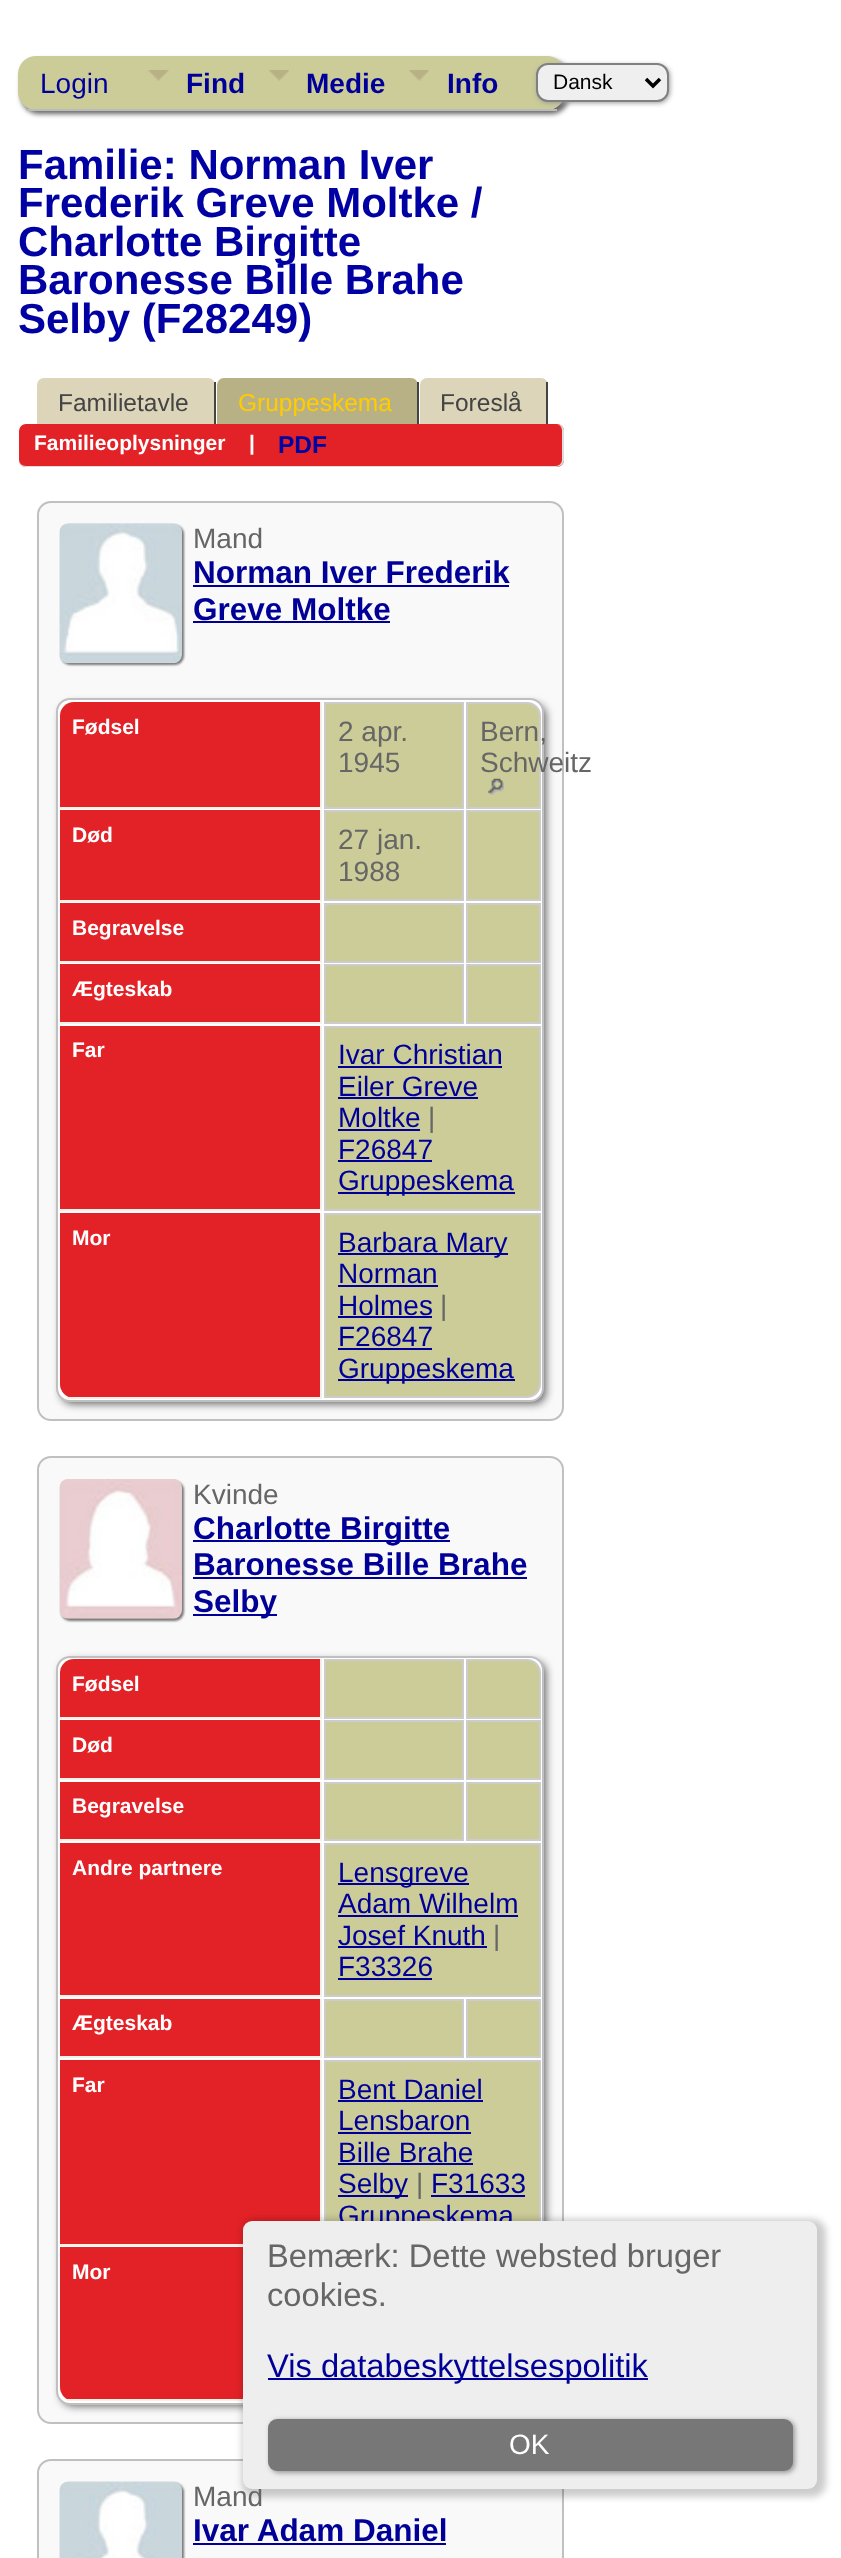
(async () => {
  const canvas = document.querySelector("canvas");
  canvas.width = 841;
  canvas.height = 2558;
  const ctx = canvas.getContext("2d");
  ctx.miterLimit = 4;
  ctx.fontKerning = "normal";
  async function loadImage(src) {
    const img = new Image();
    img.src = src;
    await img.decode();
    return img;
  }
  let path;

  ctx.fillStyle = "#ffffff";
  ctx.fillRect(0, 0, 841, 2558);
  ctx.fillStyle = "#666666";
  ctx.filter = "blur(2.5px)";
  ctx.beginPath();
  ctx.roundRect(21, 60, 548, 54, 18);
  ctx.fill();
  ctx.filter = "none";
  ctx.fillStyle = "#cccc99";
  ctx.beginPath();
  ctx.roundRect(18, 56, 547, 54, 18);
  ctx.fill();
  ctx.fillStyle = "#bbbbbb";
  ctx.fillRect(26, 109, 531, 2);
  ctx.drawImage(await loadImage("img/1.png"), 148, 70, 21, 11);
  ctx.drawImage(await loadImage("img/2.png"), 269, 70, 20, 11);
  ctx.drawImage(await loadImage("img/2.png"), 409, 70, 20, 11);
  ctx.fillStyle = "#999999";
  ctx.filter = "blur(2.5px)";
  ctx.beginPath();
  ctx.roundRect(537, 65, 133, 38, 12);
  ctx.fill();
  ctx.filter = "none";
  ctx.fillStyle = "#efefef";
  ctx.beginPath();
  ctx.roundRect(537, 64, 131, 37, 11);
  ctx.fill();
  ctx.strokeStyle = "#808080";
  ctx.lineWidth = 2;
  ctx.stroke();
  path = new Path2D("M646 79L653 86L660 79");
  ctx.strokeStyle = "#000000";
  ctx.lineWidth = 3.5;
  ctx.stroke(path);
  ctx.fillStyle = "#dcd5b9";
  ctx.beginPath();
  ctx.roundRect(37, 378, 178, 46, [7, 7, 0, 0]);
  ctx.fill();
  ctx.fillStyle = "#444444";
  ctx.fillRect(214, 382, 2, 42);
  ctx.fillStyle = "#b9b186";
  ctx.beginPath();
  ctx.roundRect(217, 378, 201, 46, [7, 7, 0, 0]);
  ctx.fill();
  ctx.fillStyle = "#444444";
  ctx.fillRect(417, 382, 2, 42);
  ctx.fillStyle = "#dcd5b9";
  ctx.beginPath();
  ctx.roundRect(420, 378, 128, 46, [7, 7, 0, 0]);
  ctx.fill();
  ctx.fillStyle = "#444444";
  ctx.fillRect(546, 382, 2, 42);
  ctx.fillStyle = "#e32227";
  ctx.beginPath();
  ctx.roundRect(19, 424, 545, 43, 7);
  ctx.fill();
  ctx.fillStyle = "#dddddd";
  path = new Path2D("M26 424H556C560 424 564 427 564 430V460C564 464 560 467 556 467H26C22 467 19 464 19 460V430C19 427 22 424 26 424ZM26 424H556C559 424 562 427 562 430V460C562 463 559 466 556 466H26C22 466 19 463 19 460V430C19 427 22 424 26 424Z");
  ctx.fill(path, "evenodd");
  ctx.fillStyle = "#f9f9f9";
  ctx.beginPath();
  ctx.roundRect(38, 502, 525, 918, 13);
  ctx.fill();
  ctx.strokeStyle = "#c0c0c0";
  ctx.lineWidth = 2;
  ctx.stroke();
  ctx.fillStyle = "#777777";
  ctx.filter = "blur(1px)";
  ctx.beginPath();
  ctx.roundRect(61, 525, 123, 140, 9);
  ctx.fill();
  ctx.filter = "none";
  ctx.drawImage(await loadImage("img/3.png"), 59, 523, 123, 141);
  ctx.fillStyle = "#000099";
  ctx.fillRect(193, 585, 316, 2);
  ctx.fillRect(193, 621, 197, 2);
  ctx.fillStyle = "#666666";
  ctx.filter = "blur(4.5px)";
  ctx.beginPath();
  ctx.roundRect(61, 704, 485, 700, 12);
  ctx.fill();
  ctx.filter = "none";
  ctx.fillStyle = "#ffffff";
  ctx.beginPath();
  ctx.roundRect(57, 699, 486, 702, 13);
  ctx.fill();
  ctx.stroke();
  ctx.fillStyle = "#e32227";
  ctx.beginPath();
  ctx.roundRect(60, 702, 262, 107, [14, 0, 0, 0]);
  ctx.fill();
  ctx.fillStyle = "#f2f2e9";
  ctx.fillRect(320, 702, 2, 107);
  ctx.fillRect(60, 807, 262, 2);
  ctx.fillStyle = "#cccc99";
  ctx.beginPath();
  ctx.rect(325, 703, 138, 105);
  ctx.fill();
  ctx.strokeStyle = "#cccccc";
  ctx.stroke();
  ctx.beginPath();
  ctx.roundRect(467, 703, 73, 105, [0, 13, 0, 0]);
  ctx.fill();
  ctx.stroke();
  ctx.drawImage(await loadImage("img/4.png"), 488, 778, 16, 17);
  for (const [x, y, w, h, color] of [
    [60, 810, 260, 90, "#e32227"],
    [320, 810, 2, 91, "#f2f2e9"],
    [60, 900, 262, 2, "#f2f2e9"],
  ]) {
    ctx.fillStyle = color;
    ctx.fillRect(x, y, w, h);
  }
  ctx.fillStyle = "#cccc99";
  ctx.beginPath();
  ctx.rect(325, 811, 138, 89);
  ctx.fill();
  ctx.stroke();
  ctx.beginPath();
  ctx.rect(467, 811, 73, 89);
  ctx.fill();
  ctx.stroke();
  for (const [x, y, w, h, color] of [
    [60, 903, 260, 58, "#e32227"],
    [320, 903, 2, 60, "#f2f2e9"],
    [60, 961, 262, 2, "#f2f2e9"],
  ]) {
    ctx.fillStyle = color;
    ctx.fillRect(x, y, w, h);
  }
  ctx.fillStyle = "#cccc99";
  ctx.beginPath();
  ctx.rect(325, 904, 138, 58);
  ctx.fill();
  ctx.stroke();
  ctx.beginPath();
  ctx.rect(467, 904, 73, 58);
  ctx.fill();
  ctx.stroke();
  for (const [x, y, w, h, color] of [
    [60, 964, 260, 58, "#e32227"],
    [320, 964, 2, 60, "#f2f2e9"],
    [60, 1022, 262, 2, "#f2f2e9"],
  ]) {
    ctx.fillStyle = color;
    ctx.fillRect(x, y, w, h);
  }
  ctx.fillStyle = "#cccc99";
  ctx.beginPath();
  ctx.rect(325, 965, 138, 58);
  ctx.fill();
  ctx.stroke();
  ctx.beginPath();
  ctx.rect(467, 965, 73, 58);
  ctx.fill();
  ctx.stroke();
  for (const [x, y, w, h, color] of [
    [60, 1026, 260, 183, "#e32227"],
    [320, 1026, 2, 185, "#f2f2e9"],
    [60, 1209, 262, 2, "#f2f2e9"],
  ]) {
    ctx.fillStyle = color;
    ctx.fillRect(x, y, w, h);
  }
  ctx.fillStyle = "#cccc99";
  ctx.beginPath();
  ctx.rect(325, 1027, 215, 183);
  ctx.fill();
  ctx.stroke();
  for (const [x, y, w, h, color] of [
    [338, 1066, 164, 2, "#000099"],
    [338, 1097, 140, 2, "#000099"],
    [338, 1129, 82, 2, "#000099"],
    [338, 1160, 94, 2, "#000099"],
    [338, 1192, 177, 2, "#000099"],
  ]) {
    ctx.fillStyle = color;
    ctx.fillRect(x, y, w, h);
  }
  ctx.fillStyle = "#e32227";
  ctx.beginPath();
  ctx.roundRect(60, 1213, 262, 185, [0, 0, 0, 14]);
  ctx.fill();
  ctx.fillStyle = "#f2f2e9";
  ctx.fillRect(320, 1213, 2, 185);
  ctx.fillRect(67, 1397, 255, 2);
  ctx.fillStyle = "#cccc99";
  ctx.beginPath();
  ctx.roundRect(325, 1214, 215, 183, [0, 0, 13, 0]);
  ctx.fill();
  ctx.stroke();
  for (const [x, y, w, h, color] of [
    [338, 1253, 170, 2, "#000099"],
    [338, 1285, 100, 2, "#000099"],
    [338, 1316, 94, 2, "#000099"],
    [338, 1348, 94, 2, "#000099"],
    [338, 1379, 177, 2, "#000099"],
  ]) {
    ctx.fillStyle = color;
    ctx.fillRect(x, y, w, h);
  }
  ctx.fillStyle = "#f9f9f9";
  ctx.beginPath();
  ctx.roundRect(38, 1457, 525, 966, 13);
  ctx.fill();
  ctx.strokeStyle = "#c0c0c0";
  ctx.stroke();
  ctx.fillStyle = "#777777";
  ctx.filter = "blur(1px)";
  ctx.beginPath();
  ctx.roundRect(61, 1481, 123, 140, 9);
  ctx.fill();
  ctx.filter = "none";
  ctx.drawImage(await loadImage("img/5.png"), 59, 1479, 123, 140);
  for (const [x, y, w, h, color] of [
    [193, 1540, 257, 2, "#000099"],
    [193, 1577, 334, 2, "#000099"],
    [193, 1614, 84, 2, "#000099"],
  ]) {
    ctx.fillStyle = color;
    ctx.fillRect(x, y, w, h);
  }
  ctx.fillStyle = "#666666";
  ctx.filter = "blur(4.5px)";
  ctx.beginPath();
  ctx.roundRect(61, 1661, 485, 745, 12);
  ctx.fill();
  ctx.filter = "none";
  ctx.fillStyle = "#ffffff";
  ctx.beginPath();
  ctx.roundRect(57, 1657, 486, 747, 13);
  ctx.fill();
  ctx.stroke();
  ctx.fillStyle = "#e32227";
  ctx.beginPath();
  ctx.roundRect(60, 1659, 262, 60, [14, 0, 0, 0]);
  ctx.fill();
  ctx.fillStyle = "#f2f2e9";
  ctx.fillRect(320, 1659, 2, 60);
  ctx.fillRect(60, 1717, 262, 2);
  ctx.fillStyle = "#cccc99";
  ctx.beginPath();
  ctx.rect(325, 1660, 138, 58);
  ctx.fill();
  ctx.strokeStyle = "#cccccc";
  ctx.stroke();
  ctx.beginPath();
  ctx.roundRect(467, 1660, 73, 58, [0, 13, 0, 0]);
  ctx.fill();
  ctx.stroke();
  for (const [x, y, w, h, color] of [
    [60, 1720, 260, 58, "#e32227"],
    [320, 1720, 2, 60, "#f2f2e9"],
    [60, 1778, 262, 2, "#f2f2e9"],
  ]) {
    ctx.fillStyle = color;
    ctx.fillRect(x, y, w, h);
  }
  ctx.fillStyle = "#cccc99";
  ctx.beginPath();
  ctx.rect(325, 1721, 138, 58);
  ctx.fill();
  ctx.stroke();
  ctx.beginPath();
  ctx.rect(467, 1721, 73, 58);
  ctx.fill();
  ctx.stroke();
  for (const [x, y, w, h, color] of [
    [60, 1782, 260, 57, "#e32227"],
    [320, 1782, 2, 59, "#f2f2e9"],
    [60, 1839, 262, 2, "#f2f2e9"],
  ]) {
    ctx.fillStyle = color;
    ctx.fillRect(x, y, w, h);
  }
  ctx.fillStyle = "#cccc99";
  ctx.beginPath();
  ctx.rect(325, 1783, 138, 57);
  ctx.fill();
  ctx.stroke();
  ctx.beginPath();
  ctx.rect(467, 1783, 73, 57);
  ctx.fill();
  ctx.stroke();
  for (const [x, y, w, h, color] of [
    [60, 1843, 260, 152, "#e32227"],
    [320, 1843, 2, 154, "#f2f2e9"],
    [60, 1995, 262, 2, "#f2f2e9"],
  ]) {
    ctx.fillStyle = color;
    ctx.fillRect(x, y, w, h);
  }
  ctx.fillStyle = "#cccc99";
  ctx.beginPath();
  ctx.rect(325, 1844, 215, 152);
  ctx.fill();
  ctx.stroke();
  for (const [x, y, w, h, color] of [
    [338, 1883, 131, 2, "#000099"],
    [338, 1915, 180, 2, "#000099"],
    [338, 1946, 149, 2, "#000099"],
    [338, 1978, 94, 2, "#000099"],
    [60, 1999, 260, 57, "#e32227"],
    [320, 1999, 2, 59, "#f2f2e9"],
    [60, 2056, 262, 2, "#f2f2e9"],
  ]) {
    ctx.fillStyle = color;
    ctx.fillRect(x, y, w, h);
  }
  ctx.fillStyle = "#cccc99";
  ctx.beginPath();
  ctx.rect(325, 2000, 138, 57);
  ctx.fill();
  ctx.stroke();
  ctx.beginPath();
  ctx.rect(467, 2000, 73, 57);
  ctx.fill();
  ctx.stroke();
  for (const [x, y, w, h, color] of [
    [60, 2060, 260, 184, "#e32227"],
    [320, 2060, 2, 161, "#f2f2e9"],
    [60, 2244, 183, 2, "#f2f2e9"],
    [326, 2062, 213, 159, "#cccc99"],
  ]) {
    ctx.fillStyle = color;
    ctx.fillRect(x, y, w, h);
  }
  ctx.strokeRect(325, 2061, 215, 183);
  for (const [x, y, w, h, color] of [
    [338, 2100, 145, 2, "#000099"],
    [338, 2132, 133, 2, "#000099"],
    [338, 2163, 135, 2, "#000099"],
    [338, 2195, 70, 2, "#000099"],
    [431, 2195, 94, 2, "#000099"],
  ]) {
    ctx.fillStyle = color;
    ctx.fillRect(x, y, w, h);
  }
  ctx.fillStyle = "#e32227";
  ctx.beginPath();
  ctx.roundRect(60, 2247, 262, 154, [0, 0, 0, 14]);
  ctx.fill();
  ctx.fillStyle = "#f2f2e9";
  ctx.fillRect(67, 2399, 176, 2);
  ctx.fillStyle = "#f9f9f9";
  ctx.beginPath();
  ctx.roundRect(38, 2460, 525, 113, 13);
  ctx.fill();
  ctx.strokeStyle = "#c0c0c0";
  ctx.stroke();
  ctx.fillStyle = "#777777";
  ctx.filter = "blur(1px)";
  ctx.beginPath();
  ctx.roundRect(61, 2483, 123, 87, 9);
  ctx.fill();
  ctx.filter = "none";
  ctx.drawImage(await loadImage("img/6.png"), 59, 2481, 123, 77);
  ctx.fillStyle = "#000099";
  ctx.fillRect(193, 2543, 253, 2);
  ctx.fillStyle = "rgba(0, 0, 0, 0.2)";
  ctx.filter = "blur(3.5px)";
  ctx.beginPath();
  ctx.roundRect(242, 2219, 584, 278, 14);
  ctx.fill();
  ctx.filter = "none";
  ctx.font = "28px Liberation Sans";
  ctx.fillStyle = "#000099";
  ctx.fillText("Login", 40, 93);
  ctx.font = "bold 28px Liberation Sans";
  for (const [text, x, y] of [
    ["Find", 186, 93],
    ["Medie", 306, 93],
    ["Info", 447, 93],
  ]) {
    ctx.fillText(text, x, y);
  }
  ctx.font = "21px Liberation Sans";
  ctx.fillStyle = "#000000";
  ctx.fillText("Dansk", 553, 89);
  ctx.font = "bold 42px Liberation Sans";
  ctx.fillStyle = "#0000a3";
  for (const [text, x, y] of [
    ["Familie: Norman Iver", 18, 179],
    ["Frederik Greve Moltke /", 18, 217],
    ["Charlotte Birgitte", 18, 256],
    ["Baronesse Bille Brahe", 18, 294],
    ["Selby (F28249)", 18, 333],
  ]) {
    ctx.fillText(text, x, y);
  }
  ctx.font = "24.5px Liberation Sans";
  ctx.fillStyle = "#444444";
  ctx.fillText("Familietavle", 58, 411);
  ctx.fillStyle = "#ffcc00";
  ctx.fillText("Gruppeskema", 238, 411);
  ctx.fillStyle = "#444444";
  ctx.fillText("Foreslå", 440, 411);
  ctx.font = "bold 21px Liberation Sans";
  ctx.fillStyle = "#ffffff";
  ctx.fillText("Familieoplysninger", 34, 450);
  ctx.fillText("|", 249, 450);
  ctx.font = "bold 24.5px Liberation Sans";
  ctx.fillStyle = "#0000a3";
  ctx.fillText("PDF", 278, 453);
  ctx.font = "28px Liberation Sans";
  ctx.fillStyle = "#666666";
  ctx.fillText("Mand", 193, 548);
  ctx.font = "bold 31.5px Liberation Sans";
  ctx.fillStyle = "#000099";
  ctx.fillText("Norman Iver Frederik", 193, 583);
  ctx.fillText("Greve Moltke", 193, 620);
  ctx.font = "bold 21px Liberation Sans";
  ctx.fillStyle = "#ffffff";
  ctx.fillText("Fødsel", 72, 734);
  ctx.font = "28px Liberation Sans";
  ctx.fillStyle = "#666666";
  for (const [text, x, y] of [
    ["2 apr.", 338, 741],
    ["1945", 338, 772],
    ["Bern,", 480, 741],
    ["Schweitz", 480, 772],
  ]) {
    ctx.fillText(text, x, y);
  }
  ctx.font = "bold 21px Liberation Sans";
  ctx.fillStyle = "#ffffff";
  ctx.fillText("Død", 72, 842);
  ctx.font = "28px Liberation Sans";
  ctx.fillStyle = "#666666";
  ctx.fillText("27 jan.", 338, 849);
  ctx.fillText("1988", 338, 881);
  ctx.font = "bold 21px Liberation Sans";
  ctx.fillStyle = "#ffffff";
  for (const [text, x, y] of [
    ["Begravelse", 72, 935],
    ["Ægteskab", 72, 996],
    ["Far", 72, 1057],
  ]) {
    ctx.fillText(text, x, y);
  }
  ctx.font = "28px Liberation Sans";
  ctx.fillStyle = "#000099";
  for (const [text, x, y] of [
    ["Ivar Christian", 338, 1064],
    ["Eiler Greve", 338, 1096],
    ["Moltke", 338, 1127],
  ]) {
    ctx.fillText(text, x, y);
  }
  ctx.fillStyle = "#666666";
  ctx.fillText("|", 428, 1127);
  ctx.fillStyle = "#000099";
  ctx.fillText("F26847", 338, 1159);
  ctx.fillText("Gruppeskema", 338, 1190);
  ctx.font = "bold 21px Liberation Sans";
  ctx.fillStyle = "#ffffff";
  ctx.fillText("Mor", 72, 1245);
  ctx.font = "28px Liberation Sans";
  ctx.fillStyle = "#000099";
  for (const [text, x, y] of [
    ["Barbara Mary", 338, 1252],
    ["Norman", 338, 1283],
    ["Holmes", 338, 1315],
  ]) {
    ctx.fillText(text, x, y);
  }
  ctx.fillStyle = "#666666";
  ctx.fillText("|", 440, 1315);
  ctx.fillStyle = "#000099";
  ctx.fillText("F26847", 338, 1346);
  ctx.fillText("Gruppeskema", 338, 1378);
  ctx.fillStyle = "#666666";
  ctx.fillText("Kvinde", 193, 1504);
  ctx.font = "bold 31.5px Liberation Sans";
  ctx.fillStyle = "#000099";
  for (const [text, x, y] of [
    ["Charlotte Birgitte", 193, 1539],
    ["Baronesse Bille Brahe", 193, 1575],
    ["Selby", 193, 1612],
  ]) {
    ctx.fillText(text, x, y);
  }
  ctx.font = "bold 21px Liberation Sans";
  ctx.fillStyle = "#ffffff";
  for (const [text, x, y] of [
    ["Fødsel", 72, 1691],
    ["Død", 72, 1752],
    ["Begravelse", 72, 1813],
    ["Andre partnere", 72, 1875],
  ]) {
    ctx.fillText(text, x, y);
  }
  ctx.font = "28px Liberation Sans";
  ctx.fillStyle = "#000099";
  for (const [text, x, y] of [
    ["Lensgreve", 338, 1882],
    ["Adam Wilhelm", 338, 1913],
    ["Josef Knuth", 338, 1945],
  ]) {
    ctx.fillText(text, x, y);
  }
  ctx.fillStyle = "#666666";
  ctx.fillText("|", 493, 1945);
  ctx.fillStyle = "#000099";
  ctx.fillText("F33326", 338, 1976);
  ctx.font = "bold 21px Liberation Sans";
  ctx.fillStyle = "#ffffff";
  ctx.fillText("Ægteskab", 72, 2030);
  ctx.fillText("Far", 72, 2092);
  ctx.font = "28px Liberation Sans";
  ctx.fillStyle = "#000099";
  for (const [text, x, y] of [
    ["Bent Daniel", 338, 2099],
    ["Lensbaron", 338, 2130],
    ["Bille Brahe", 338, 2162],
    ["Selby", 338, 2193],
  ]) {
    ctx.fillText(text, x, y);
  }
  ctx.fillStyle = "#666666";
  ctx.fillText("|", 416, 2193);
  ctx.fillStyle = "#000099";
  ctx.fillText("F31633", 431, 2193);
  ctx.fillText("Gruppeskema", 338, 2225);
  ctx.font = "bold 21px Liberation Sans";
  ctx.fillStyle = "#ffffff";
  ctx.fillText("Mor", 72, 2279);
  ctx.font = "28px Liberation Sans";
  ctx.fillStyle = "#666666";
  ctx.fillText("Mand", 193, 2506);
  ctx.font = "bold 31.5px Liberation Sans";
  ctx.fillStyle = "#000099";
  ctx.fillText("Ivar Adam Daniel", 193, 2541);
  ctx.fillStyle = "#eeeeee";
  ctx.beginPath();
  ctx.roundRect(243, 2221, 574, 268, 9);
  ctx.fill();
  ctx.font = "32.7px Liberation Sans";
  ctx.fillStyle = "#666666";
  ctx.fillText("Bemærk: Dette websted bruger", 267, 2267);
  ctx.fillText("cookies.", 267, 2306);
  ctx.fillStyle = "#000099";
  ctx.fillRect(268, 2378, 380, 2);
  ctx.fillText("Vis databeskyttelsespolitik", 267, 2377);
  ctx.fillStyle = "#999999";
  ctx.filter = "blur(2.5px)";
  ctx.beginPath();
  ctx.roundRect(270, 2420, 525, 53, 9);
  ctx.fill();
  ctx.filter = "none";
  ctx.fillStyle = "#777777";
  ctx.beginPath();
  ctx.roundRect(268, 2419, 525, 52, 9);
  ctx.fill();
  ctx.font = "28px Liberation Sans";
  ctx.fillStyle = "#ffffff";
  ctx.fillText("OK", 509, 2454);
})();
